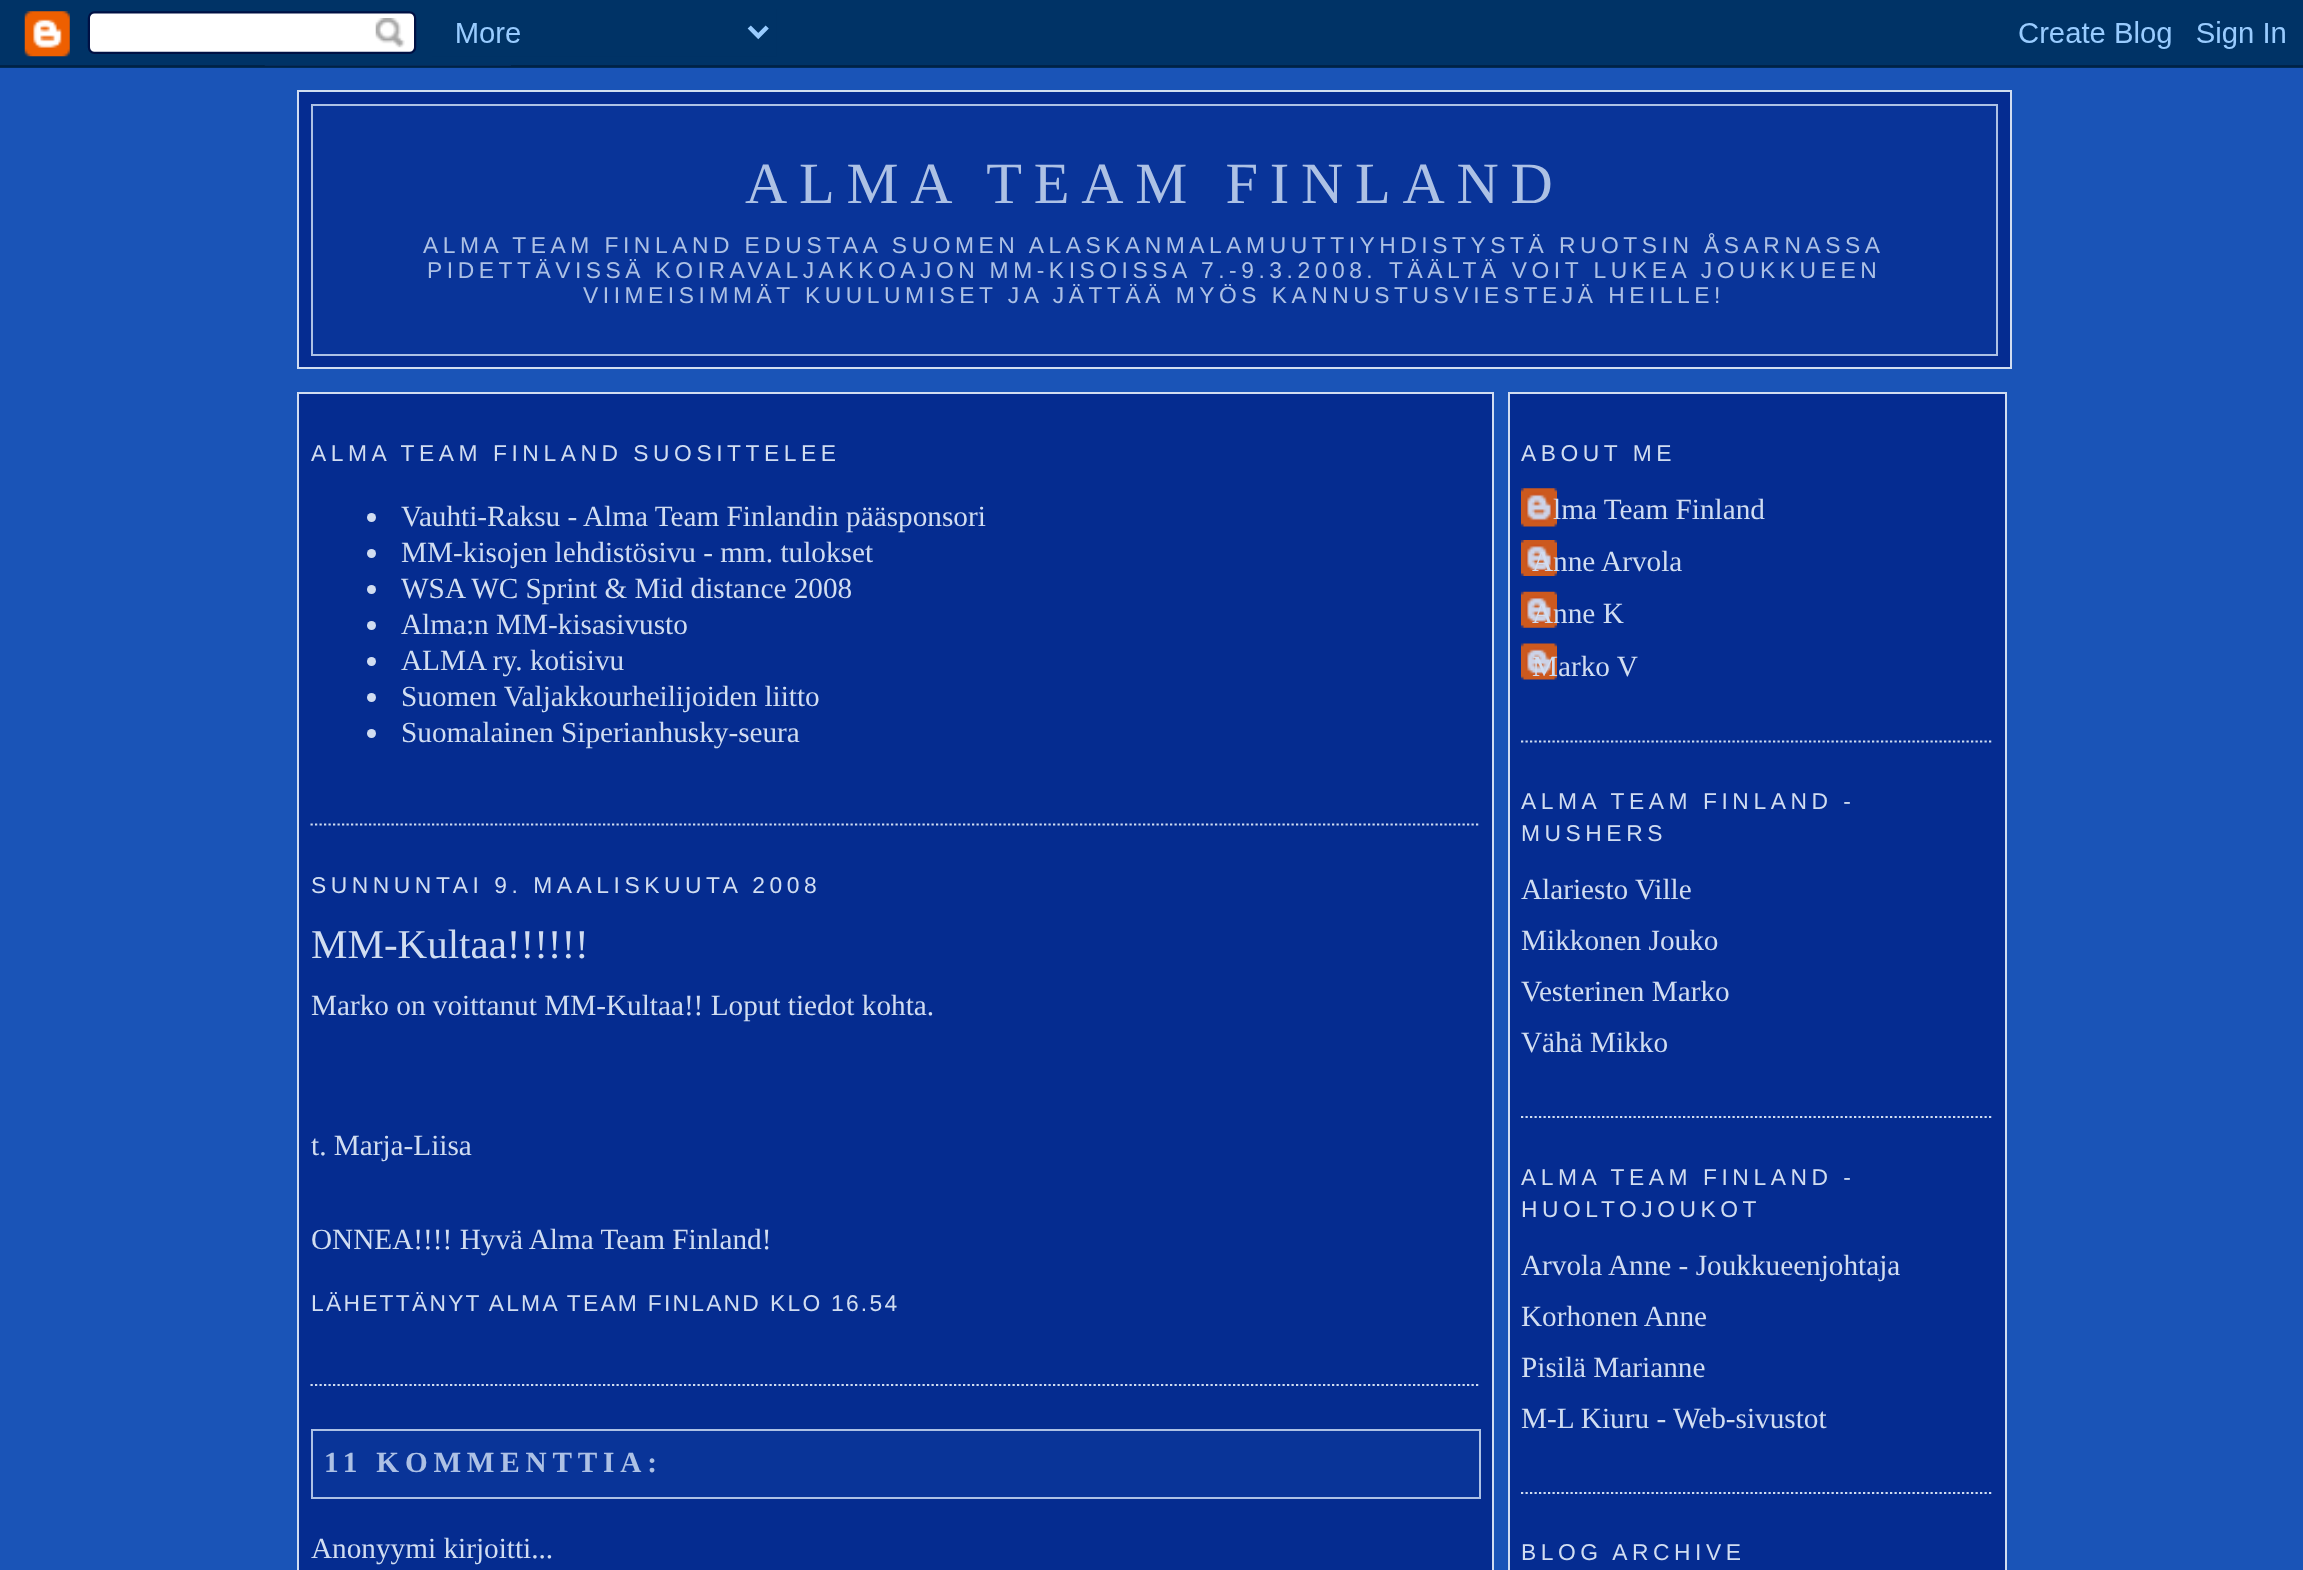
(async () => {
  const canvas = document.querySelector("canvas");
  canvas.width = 2303;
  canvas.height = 1570;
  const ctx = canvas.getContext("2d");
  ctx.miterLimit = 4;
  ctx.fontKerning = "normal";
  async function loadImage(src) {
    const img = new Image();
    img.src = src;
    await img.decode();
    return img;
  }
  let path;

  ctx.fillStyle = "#1a54b7";
  ctx.fillRect(0, 0, 2303, 1570);
  ctx.drawImage(await loadImage("img/1.png"), 0, 0, 2303, 68);
  ctx.fillStyle = "#052c91";
  ctx.beginPath();
  ctx.rect(298, 91, 1713, 277);
  ctx.fill();
  ctx.strokeStyle = "#d1ddf1";
  ctx.lineWidth = 2;
  ctx.stroke();
  ctx.fillStyle = "#093499";
  ctx.beginPath();
  ctx.rect(312, 105, 1685, 250);
  ctx.fill();
  ctx.strokeStyle = "#adc1e5";
  ctx.stroke();
  ctx.fillStyle = "#052c90";
  ctx.beginPath();
  ctx.rect(298, 393, 1195, 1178);
  ctx.fill();
  ctx.strokeStyle = "#d1ddf1";
  ctx.stroke();
  path = new Path2D("M310.5 824.5H1480.5");
  ctx.lineWidth = 2.2;
  ctx.setLineDash([2.25, 2.25]);
  ctx.stroke(path);
  ctx.fillStyle = "#d1ddf1";
  ctx.beginPath();
  ctx.arc(371.5, 517.5, 4.5, 0, Math.PI * 2);
  ctx.fill();
  ctx.beginPath();
  ctx.arc(371.5, 553.5, 4.5, 0, Math.PI * 2);
  ctx.fill();
  ctx.beginPath();
  ctx.arc(371.5, 589.5, 4.5, 0, Math.PI * 2);
  ctx.fill();
  ctx.beginPath();
  ctx.arc(371.5, 625.5, 4.5, 0, Math.PI * 2);
  ctx.fill();
  ctx.beginPath();
  ctx.arc(371.5, 661.5, 4.5, 0, Math.PI * 2);
  ctx.fill();
  ctx.beginPath();
  ctx.arc(371.5, 697.5, 4.5, 0, Math.PI * 2);
  ctx.fill();
  ctx.beginPath();
  ctx.arc(371.5, 733.5, 4.5, 0, Math.PI * 2);
  ctx.fill();
  path = new Path2D("M310.5 1385H1480.5");
  ctx.stroke(path);
  ctx.fillStyle = "#093498";
  ctx.beginPath();
  ctx.rect(312, 1430, 1168, 68);
  ctx.fill();
  ctx.strokeStyle = "#adc1e5";
  ctx.lineWidth = 2;
  ctx.setLineDash([]);
  ctx.stroke();
  ctx.fillStyle = "#052c91";
  ctx.beginPath();
  ctx.rect(1509, 393, 497, 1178);
  ctx.fill();
  ctx.strokeStyle = "#d1ddf1";
  ctx.stroke();
  path = new Path2D("M1521 741.5H1993.5");
  ctx.lineWidth = 2.2;
  ctx.setLineDash([2.25, 2.25]);
  ctx.stroke(path);
  ctx.drawImage(await loadImage("img/2.png"), 1521, 488, 36, 39);
  ctx.drawImage(await loadImage("img/3.png"), 1521, 540, 36, 36);
  ctx.drawImage(await loadImage("img/4.png"), 1521, 591, 36, 37);
  ctx.drawImage(await loadImage("img/5.png"), 1521, 643, 36, 37);
  path = new Path2D("M1521 1117H1993.5");
  ctx.stroke(path);
  path = new Path2D("M1521 1493H1993.5");
  ctx.stroke(path);
  ctx.letterSpacing = "11.75px";
  ctx.font = "58.5px Liberation Serif";
  ctx.fillStyle = "#adc1e5";
  ctx.fillText("ALMA TEAM FINLAND", 745, 203);
  ctx.letterSpacing = "4.55px";
  ctx.wordSpacing = "-0.25px";
  ctx.font = "22.82px Liberation Sans";
  ctx.fillText("ALMA TEAM FINLAND EDUSTAA SUOMEN ALASKANMALAMUUTTIYHDISTYSTÄ RUOTSIN ÅSARNASSA", 423, 253);
  ctx.wordSpacing = "-0.5px";
  ctx.fillText("PIDETTÄVISSÄ KOIRAVALJAKKOAJON MM-KISOISSA 7.-9.3.2008.", 427, 278);
  ctx.wordSpacing = "0px";
  ctx.fillText("TÄÄLTÄ VOIT LUKEA JOUKKUEEN", 1389, 278);
  ctx.wordSpacing = "-0.25px";
  ctx.fillText("VIIMEISIMMÄT KUULUMISET JA JÄTTÄÄ MYÖS KANNUSTUSVIESTEJÄ HEILLE!", 583, 303);
  ctx.wordSpacing = "0px";
  ctx.fillStyle = "#d1ddf1";
  ctx.fillText("ALMA TEAM FINLAND SUOSITTELEE", 311, 461);
  ctx.letterSpacing = "0px";
  ctx.font = "29.25px Liberation Serif";
  for (const [text, x, y] of [
    ["Vauhti-Raksu - Alma Team Finlandin pääsponsori", 401, 526],
    ["MM-kisojen lehdistösivu - mm. tulokset", 401, 562],
    ["WSA WC Sprint & Mid distance 2008", 401, 598],
    ["Alma:n MM-kisasivusto", 401, 634],
    ["ALMA ry. kotisivu", 401, 670],
    ["Suomen Valjakkourheilijoiden liitto", 401, 706],
    ["Suomalainen Siperianhusky-seura", 401, 742],
  ]) {
    ctx.fillText(text, x, y);
  }
  ctx.letterSpacing = "4.55px";
  ctx.font = "22.82px Liberation Sans";
  ctx.fillText("SUNNUNTAI 9. MAALISKUUTA 2008", 311, 893);
  ctx.letterSpacing = "0px";
  ctx.font = "41px Liberation Serif";
  ctx.fillText("MM-Kultaa!!!!!!", 311, 958);
  ctx.font = "29.25px Liberation Serif";
  for (const [text, x, y] of [
    ["Marko on voittanut MM-Kultaa!! Loput tiedot kohta.", 311, 1015],
    ["t. Marja-Liisa", 311, 1155],
    ["ONNEA!!!! Hyvä Alma Team Finland!", 311, 1249],
  ]) {
    ctx.fillText(text, x, y);
  }
  ctx.letterSpacing = "2.25px";
  ctx.font = "22.82px Liberation Sans";
  ctx.fillText("LÄHETTÄNYT ALMA TEAM FINLAND", 311, 1311);
  ctx.fillText("KLO 16.54", 770, 1311);
  ctx.letterSpacing = "5.8px";
  ctx.font = "bold 29.25px Liberation Serif";
  ctx.fillStyle = "#adc1e5";
  ctx.fillText("11 KOMMENTTIA:", 324, 1472);
  ctx.letterSpacing = "0px";
  ctx.font = "29.25px Liberation Serif";
  ctx.fillStyle = "#d1ddf1";
  ctx.fillText("Anonyymi kirjoitti...", 311, 1558);
  ctx.letterSpacing = "4.55px";
  ctx.font = "22.82px Liberation Sans";
  ctx.fillText("ABOUT ME", 1521, 461);
  ctx.letterSpacing = "0px";
  ctx.font = "29.25px Liberation Serif";
  for (const [text, x, y] of [
    ["lma Team Finland", 1553, 519],
    ["Anne Arvola", 1532, 571],
    ["Anne K", 1532, 623],
    ["Marko V", 1532, 676],
  ]) {
    ctx.fillText(text, x, y);
  }
  ctx.letterSpacing = "4.55px";
  ctx.font = "22.82px Liberation Sans";
  ctx.fillText("ALMA TEAM FINLAND -", 1521, 809);
  ctx.fillText("MUSHERS", 1521, 841);
  ctx.letterSpacing = "0px";
  ctx.font = "29.25px Liberation Serif";
  for (const [text, x, y] of [
    ["Alariesto Ville", 1521, 899],
    ["Mikkonen Jouko", 1521, 950],
    ["Vesterinen Marko", 1521, 1001],
    ["Vähä Mikko", 1521, 1052],
  ]) {
    ctx.fillText(text, x, y);
  }
  ctx.letterSpacing = "4.55px";
  ctx.font = "22.82px Liberation Sans";
  ctx.fillText("ALMA TEAM FINLAND -", 1521, 1185);
  ctx.fillText("HUOLTOJOUKOT", 1521, 1217);
  ctx.letterSpacing = "0px";
  ctx.font = "29.25px Liberation Serif";
  for (const [text, x, y] of [
    ["Arvola Anne - Joukkueenjohtaja", 1521, 1275],
    ["Korhonen Anne", 1521, 1326],
    ["Pisilä Marianne", 1521, 1377],
    ["M-L Kiuru - Web-sivustot", 1521, 1428],
  ]) {
    ctx.fillText(text, x, y);
  }
  ctx.letterSpacing = "4.55px";
  ctx.font = "22.82px Liberation Sans";
  ctx.fillText("BLOG ARCHIVE", 1521, 1560);
})();
